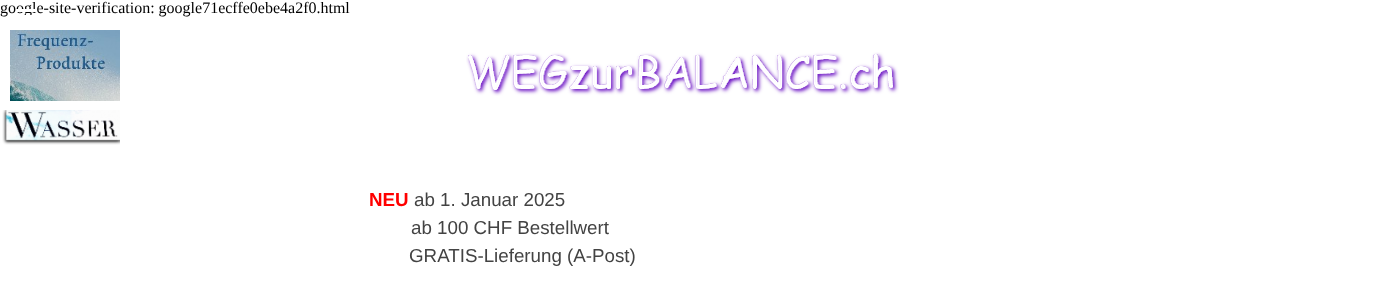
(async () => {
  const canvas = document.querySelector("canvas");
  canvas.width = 1387;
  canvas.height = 302;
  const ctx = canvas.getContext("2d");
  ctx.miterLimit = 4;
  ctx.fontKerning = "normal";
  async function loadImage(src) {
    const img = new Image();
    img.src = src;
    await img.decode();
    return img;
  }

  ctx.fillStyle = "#ffffff";
  ctx.fillRect(0, 0, 1387, 302);
  ctx.drawImage(await loadImage("img/1.png"), 10, 30, 110, 71);
  ctx.drawImage(await loadImage("img/2.png"), 2, 110, 118, 35);
  ctx.drawImage(await loadImage("img/3.png"), 466, 52, 433, 44);
  ctx.font = "16px Liberation Serif";
  ctx.fillStyle = "#000000";
  ctx.fillText("google-site-verification: google71ecffe0ebe4a2f0.html", 0, 13);
  ctx.fillStyle = "#ffffff";
  ctx.fillRect(16, 9, 20, 3);
  ctx.fillRect(16, 15, 20, 2);
  ctx.font = "bold 18.75px Liberation Sans";
  ctx.fillStyle = "#ff0000";
  ctx.fillText("NEU", 369, 206);
  ctx.font = "18.75px Liberation Sans";
  ctx.fillStyle = "#434343";
  for (const [text, x, y] of [
    ["ab 1. Januar 2025", 414, 206],
    ["ab 100 CHF Bestellwert", 411, 234],
    ["GRATIS-Lieferung (A-Post)", 409, 262],
  ]) {
    ctx.fillText(text, x, y);
  }
})();
